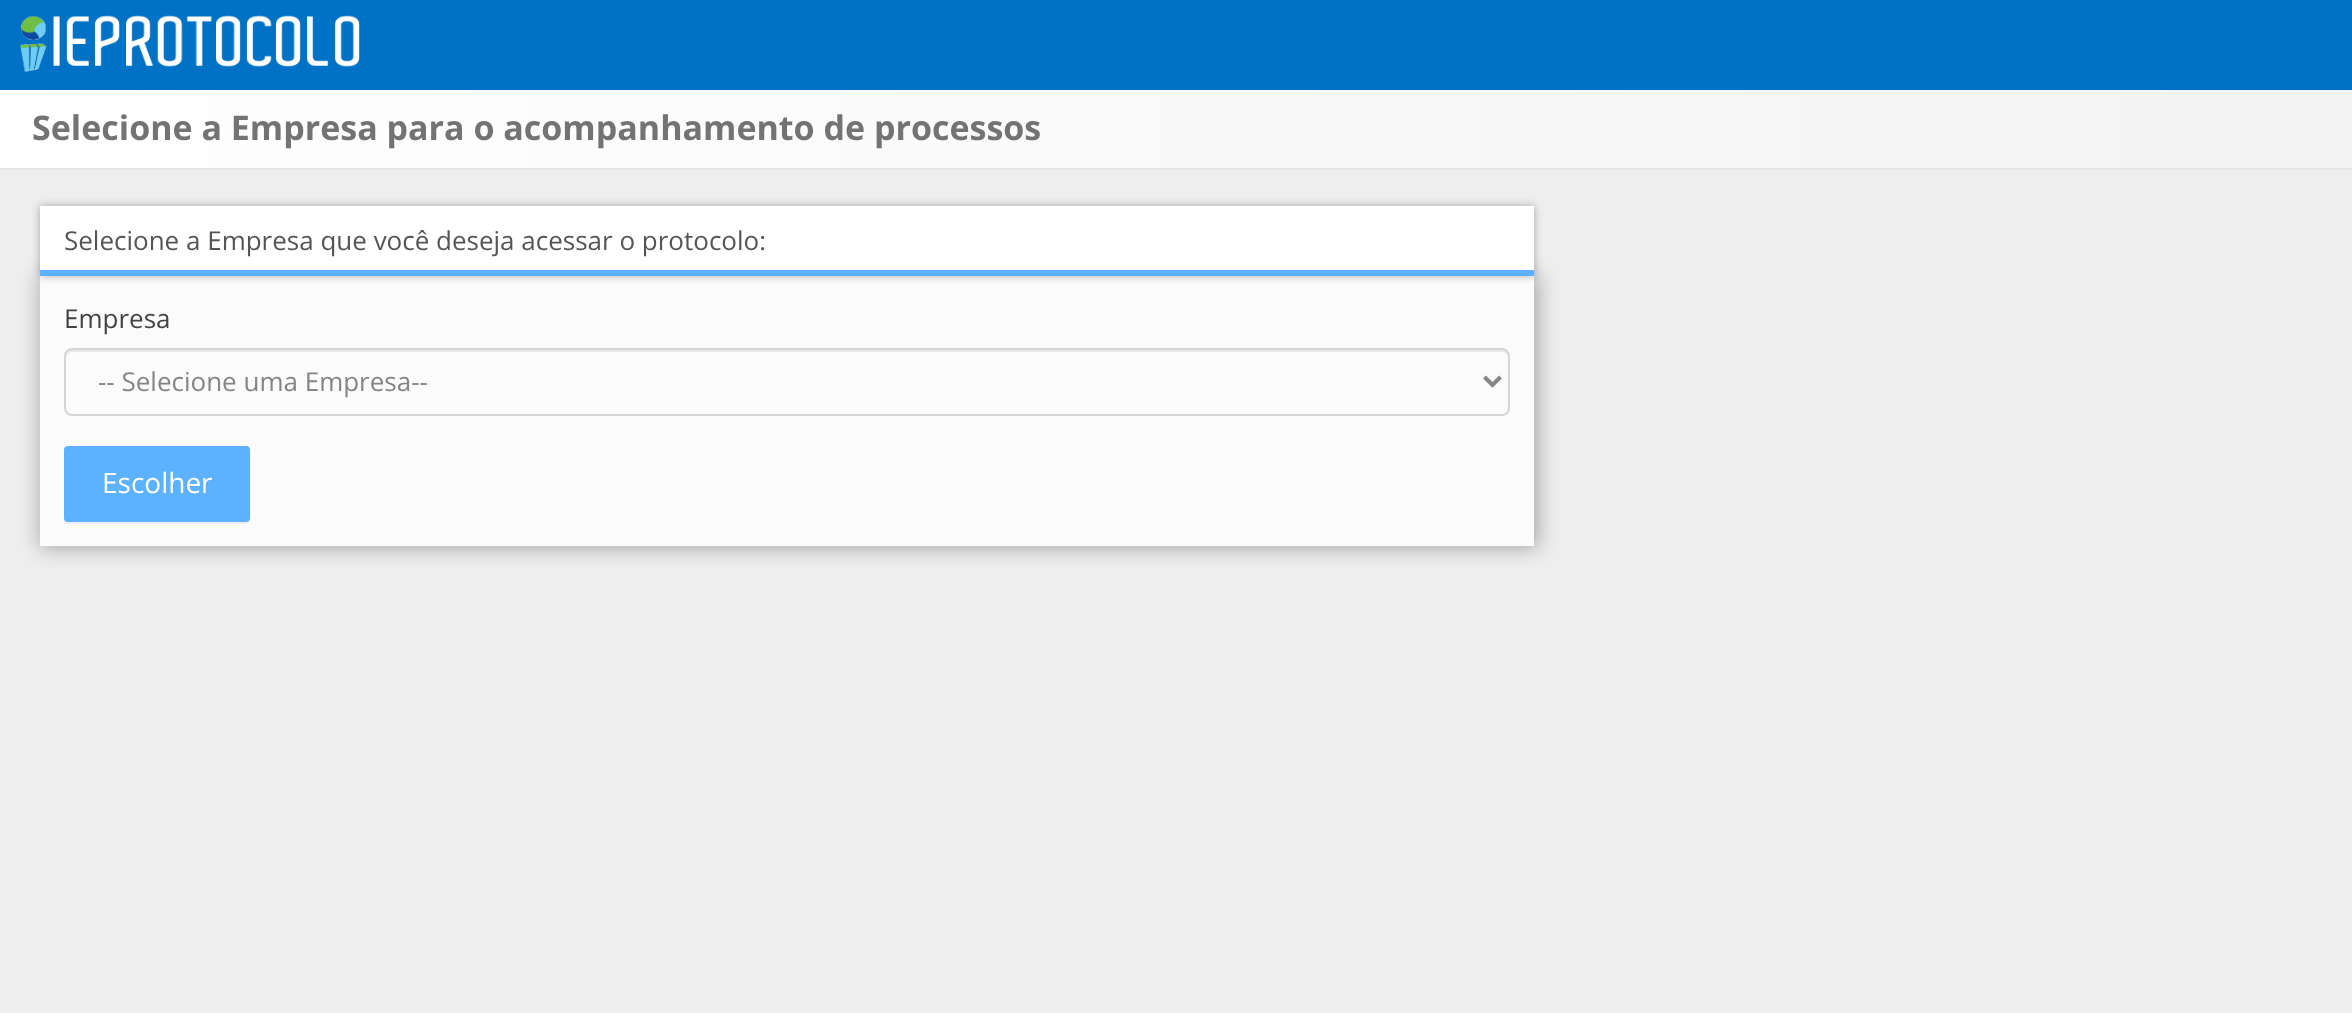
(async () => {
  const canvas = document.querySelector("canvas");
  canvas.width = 2352;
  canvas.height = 1013;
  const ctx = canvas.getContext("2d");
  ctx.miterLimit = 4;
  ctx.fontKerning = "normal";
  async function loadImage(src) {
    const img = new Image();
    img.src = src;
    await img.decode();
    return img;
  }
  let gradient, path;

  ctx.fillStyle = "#eeeeee";
  ctx.fillRect(0, 0, 2352, 1013);
  ctx.fillStyle = "#0072c6";
  ctx.fillRect(0, 0, 2352, 90);
  ctx.drawImage(await loadImage("img/1.png"), 20, 15, 340, 58);
  gradient = ctx.createLinearGradient(0, 129, 2352, 129);
  gradient.addColorStop(0, "#ffffff");
  gradient.addColorStop(1, "#f3f3f3");
  ctx.fillStyle = gradient;
  ctx.fillRect(0, 90, 2352, 78);
  ctx.fillStyle = "#e5e5e5";
  ctx.fillRect(0, 168, 2352, 2);
  ctx.fillStyle = "rgba(0, 0, 0, 0.3)";
  ctx.filter = "blur(10px)";
  ctx.beginPath();
  ctx.rect(40, 274, 1498, 274);
  ctx.fill();
  ctx.filter = "none";
  ctx.fillStyle = "#fbfbfb";
  ctx.fillRect(40, 276, 1494, 270);
  ctx.fillStyle = "rgba(0, 0, 0, 0.3)";
  ctx.filter = "blur(4px)";
  ctx.beginPath();
  ctx.rect(40, 206, 1494, 70);
  ctx.fill();
  ctx.filter = "none";
  ctx.fillStyle = "#ffffff";
  ctx.fillRect(40, 206, 1494, 64);
  ctx.fillStyle = "#5db2ff";
  ctx.fillRect(40, 270, 1494, 6);
  ctx.fillStyle = "#e8e8e8";
  path = new Path2D("M72 352H1502C1505 352 1508 355 1508 358C1508 354 1507 350 1502 350H72C67 350 66 354 66 358C66 355 69 352 72 352Z");
  ctx.fill(path);
  ctx.beginPath();
  ctx.roundRect(65, 349, 1444, 66, 7);
  ctx.strokeStyle = "#d5d5d5";
  ctx.lineWidth = 2;
  ctx.stroke();
  path = new Path2D("M1484.5 377L1492.5 385L1500.5 377");
  ctx.strokeStyle = "#858585";
  ctx.lineWidth = 4;
  ctx.stroke(path);
  ctx.fillStyle = "#eeeeee";
  path = new Path2D("M64 518V520C64 522 66 524 68 524H246C248 524 250 522 250 520V518C250 520 248 522 246 522H68C66 522 64 520 64 518Z");
  ctx.fill(path);
  ctx.fillStyle = "#5db2ff";
  ctx.beginPath();
  ctx.roundRect(65, 447, 184, 74, 3);
  ctx.fill();
  ctx.strokeStyle = "#5db2ff";
  ctx.lineWidth = 2;
  ctx.stroke();
  ctx.font = "bold 34px Open Sans";
  ctx.fillStyle = "#737373";
  ctx.fillText("Selecione a Empresa para o acompanhamento de processos", 32, 140);
  ctx.font = "26px Open Sans";
  ctx.fillStyle = "#555555";
  ctx.fillText("Selecione a Empresa que você deseja acessar o protocolo:", 64, 250);
  ctx.fillStyle = "#444444";
  ctx.fillText("Empresa", 64, 328);
  ctx.fillStyle = "#858585";
  ctx.fillText("-- Selecione uma Empresa--", 98, 391);
  ctx.font = "28px Open Sans";
  ctx.fillStyle = "#ffffff";
  ctx.fillText("Escolher", 102, 493);
})();
